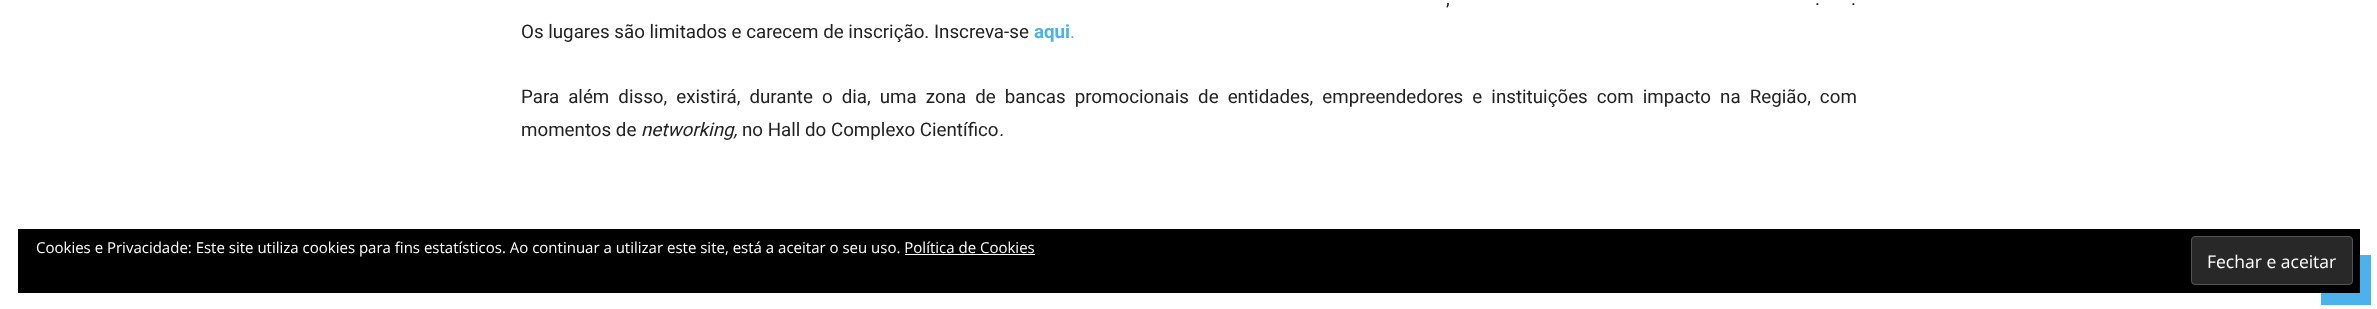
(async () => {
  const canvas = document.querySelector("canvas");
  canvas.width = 2377;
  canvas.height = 309;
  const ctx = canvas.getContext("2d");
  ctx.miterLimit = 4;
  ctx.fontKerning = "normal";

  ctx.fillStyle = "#ffffff";
  ctx.fillRect(0, 0, 2377, 309);
  for (const [x, y, w, h, color] of [
    [2321, 255, 50, 50, "#4db2ec"],
    [18, 229, 2342, 64, "#000000"],
    [905, 254, 130, 1, "#ffffff"],
  ]) {
    ctx.fillStyle = color;
    ctx.fillRect(x, y, w, h);
  }
  ctx.fillStyle = "#282828";
  ctx.beginPath();
  ctx.roundRect(2191.5, 236.5, 161, 48, 3.5);
  ctx.fill();
  ctx.strokeStyle = "#535353";
  ctx.stroke();
  ctx.font = "18.75px Roboto";
  ctx.fillStyle = "#222222";
  for (const [text, x, y] of [
    [",", 1446, 5],
    [".", 1815, 5],
    [".", 1851, 5],
    ["Os lugares são limitados e carecem de inscrição. Inscreva-se", 521, 38],
  ]) {
    ctx.fillText(text, x, y);
  }
  ctx.font = "bold 18.75px Roboto";
  ctx.fillStyle = "#4db2ec";
  ctx.fillText("aqui", 1034, 38);
  ctx.font = "18.75px Roboto";
  ctx.fillText(".", 1070, 38);
  ctx.wordSpacing = "4.4px";
  ctx.fillStyle = "#222222";
  ctx.fillText("Para além disso, existirá, durante o dia, uma zona de bancas promocionais de entidades, empreendedores e instituições com impacto na Região, com", 521, 103);
  ctx.wordSpacing = "0px";
  ctx.fillText("momentos de", 521, 136);
  ctx.font = "italic 18.75px Roboto";
  ctx.fillText("networking,", 641, 136);
  ctx.font = "18.75px Roboto";
  ctx.fillText("no Hall do Complexo Científico", 742, 136);
  ctx.font = "italic 18.75px Roboto";
  ctx.fillText(".", 999, 136);
  ctx.font = "15px Open Sans";
  ctx.fillStyle = "#ffffff";
  ctx.fillText("Cookies e Privacidade: Este site utiliza cookies para fins estatísticos. Ao continuar a utilizar este site, está a aceitar o seu uso. Política de Cookies", 36, 253);
  ctx.font = "17.5px Open Sans";
  ctx.fillText("Fechar e aceitar", 2207, 268);
})();
